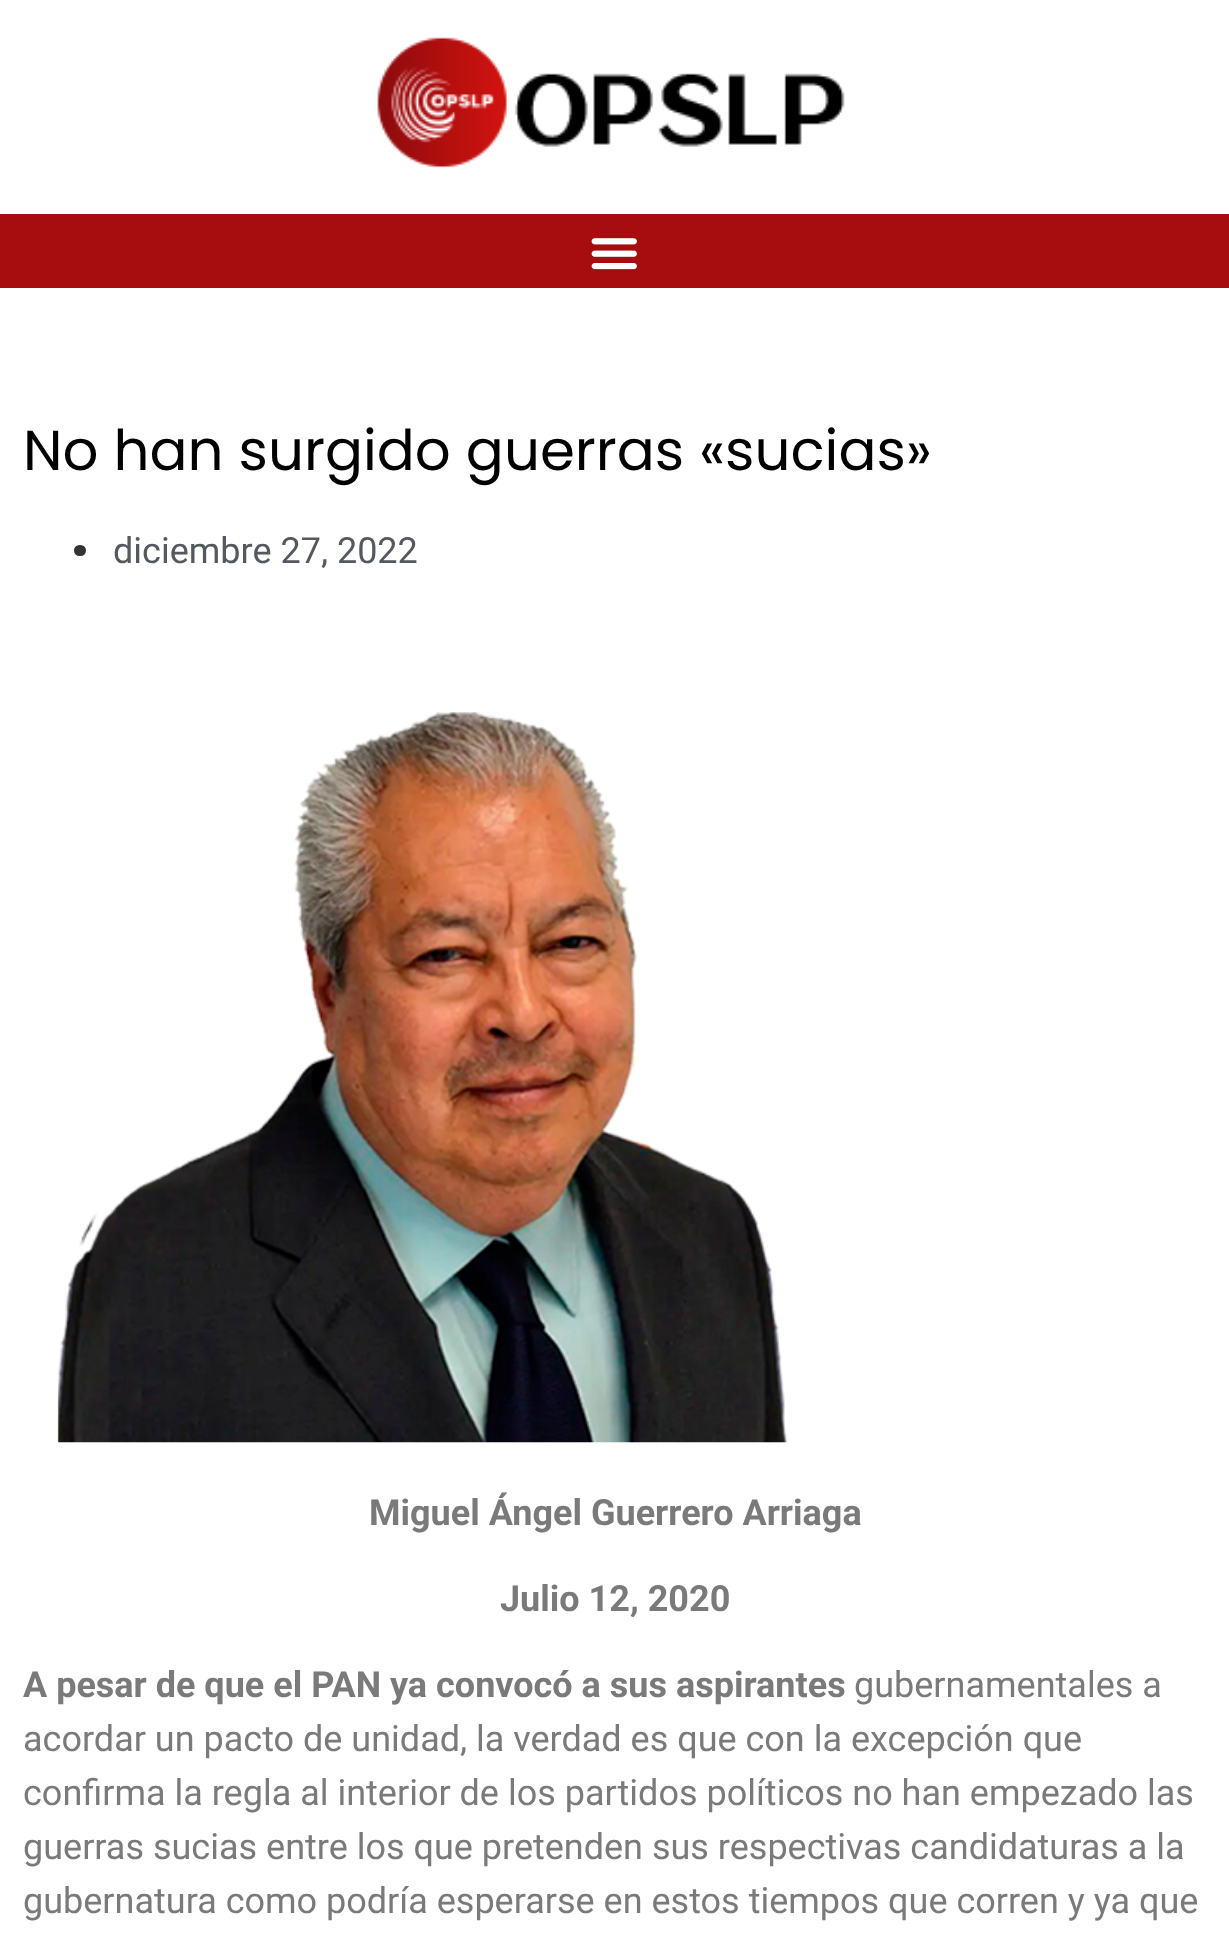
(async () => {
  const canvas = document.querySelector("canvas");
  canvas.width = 1229;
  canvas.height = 1936;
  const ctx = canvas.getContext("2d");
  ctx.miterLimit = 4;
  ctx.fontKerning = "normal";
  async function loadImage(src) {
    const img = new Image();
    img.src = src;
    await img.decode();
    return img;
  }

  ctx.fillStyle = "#ffffff";
  ctx.fillRect(0, 0, 1229, 1936);
  ctx.drawImage(await loadImage("img/1.png"), 377, 37, 468, 131);
  ctx.fillStyle = "#a50d0f";
  ctx.fillRect(0, 214, 1229, 74);
  ctx.drawImage(await loadImage("img/2.png"), 591, 238, 46, 32);
  ctx.fillStyle = "#333333";
  ctx.beginPath();
  ctx.roundRect(74, 545, 12, 11, 5.5);
  ctx.fill();
  ctx.drawImage(await loadImage("img/3.png"), 57, 712, 731, 731);
  ctx.font = "56.25px Poppins";
  ctx.fillStyle = "#000000";
  ctx.fillText("No han surgido guerras «sucias»", 23, 470);
  ctx.font = "36px Roboto";
  ctx.fillStyle = "#54595f";
  ctx.fillText("diciembre 27, 2022", 113, 563);
  ctx.font = "bold 36px Roboto";
  ctx.fillStyle = "#7a7a7a";
  for (const [text, x, y] of [
    ["Miguel Ángel Guerrero Arriaga", 369, 1525],
    ["Julio 12, 2020", 500, 1611],
    ["A pesar de que el PAN ya convocó a sus aspirantes", 23, 1697],
  ]) {
    ctx.fillText(text, x, y);
  }
  ctx.font = "36px Roboto";
  for (const [text, x, y] of [
    ["gubernamentales a", 854, 1697],
    ["acordar un pacto de unidad, la verdad es que con la excepción que", 23, 1751],
    ["confirma la regla al interior de los partidos políticos no han empezado las", 23, 1805],
    ["guerras sucias entre los que pretenden sus respectivas candidaturas a la", 23, 1859],
    ["gubernatura como podría esperarse en estos tiempos que corren y ya que", 23, 1913],
  ]) {
    ctx.fillText(text, x, y);
  }
})();
